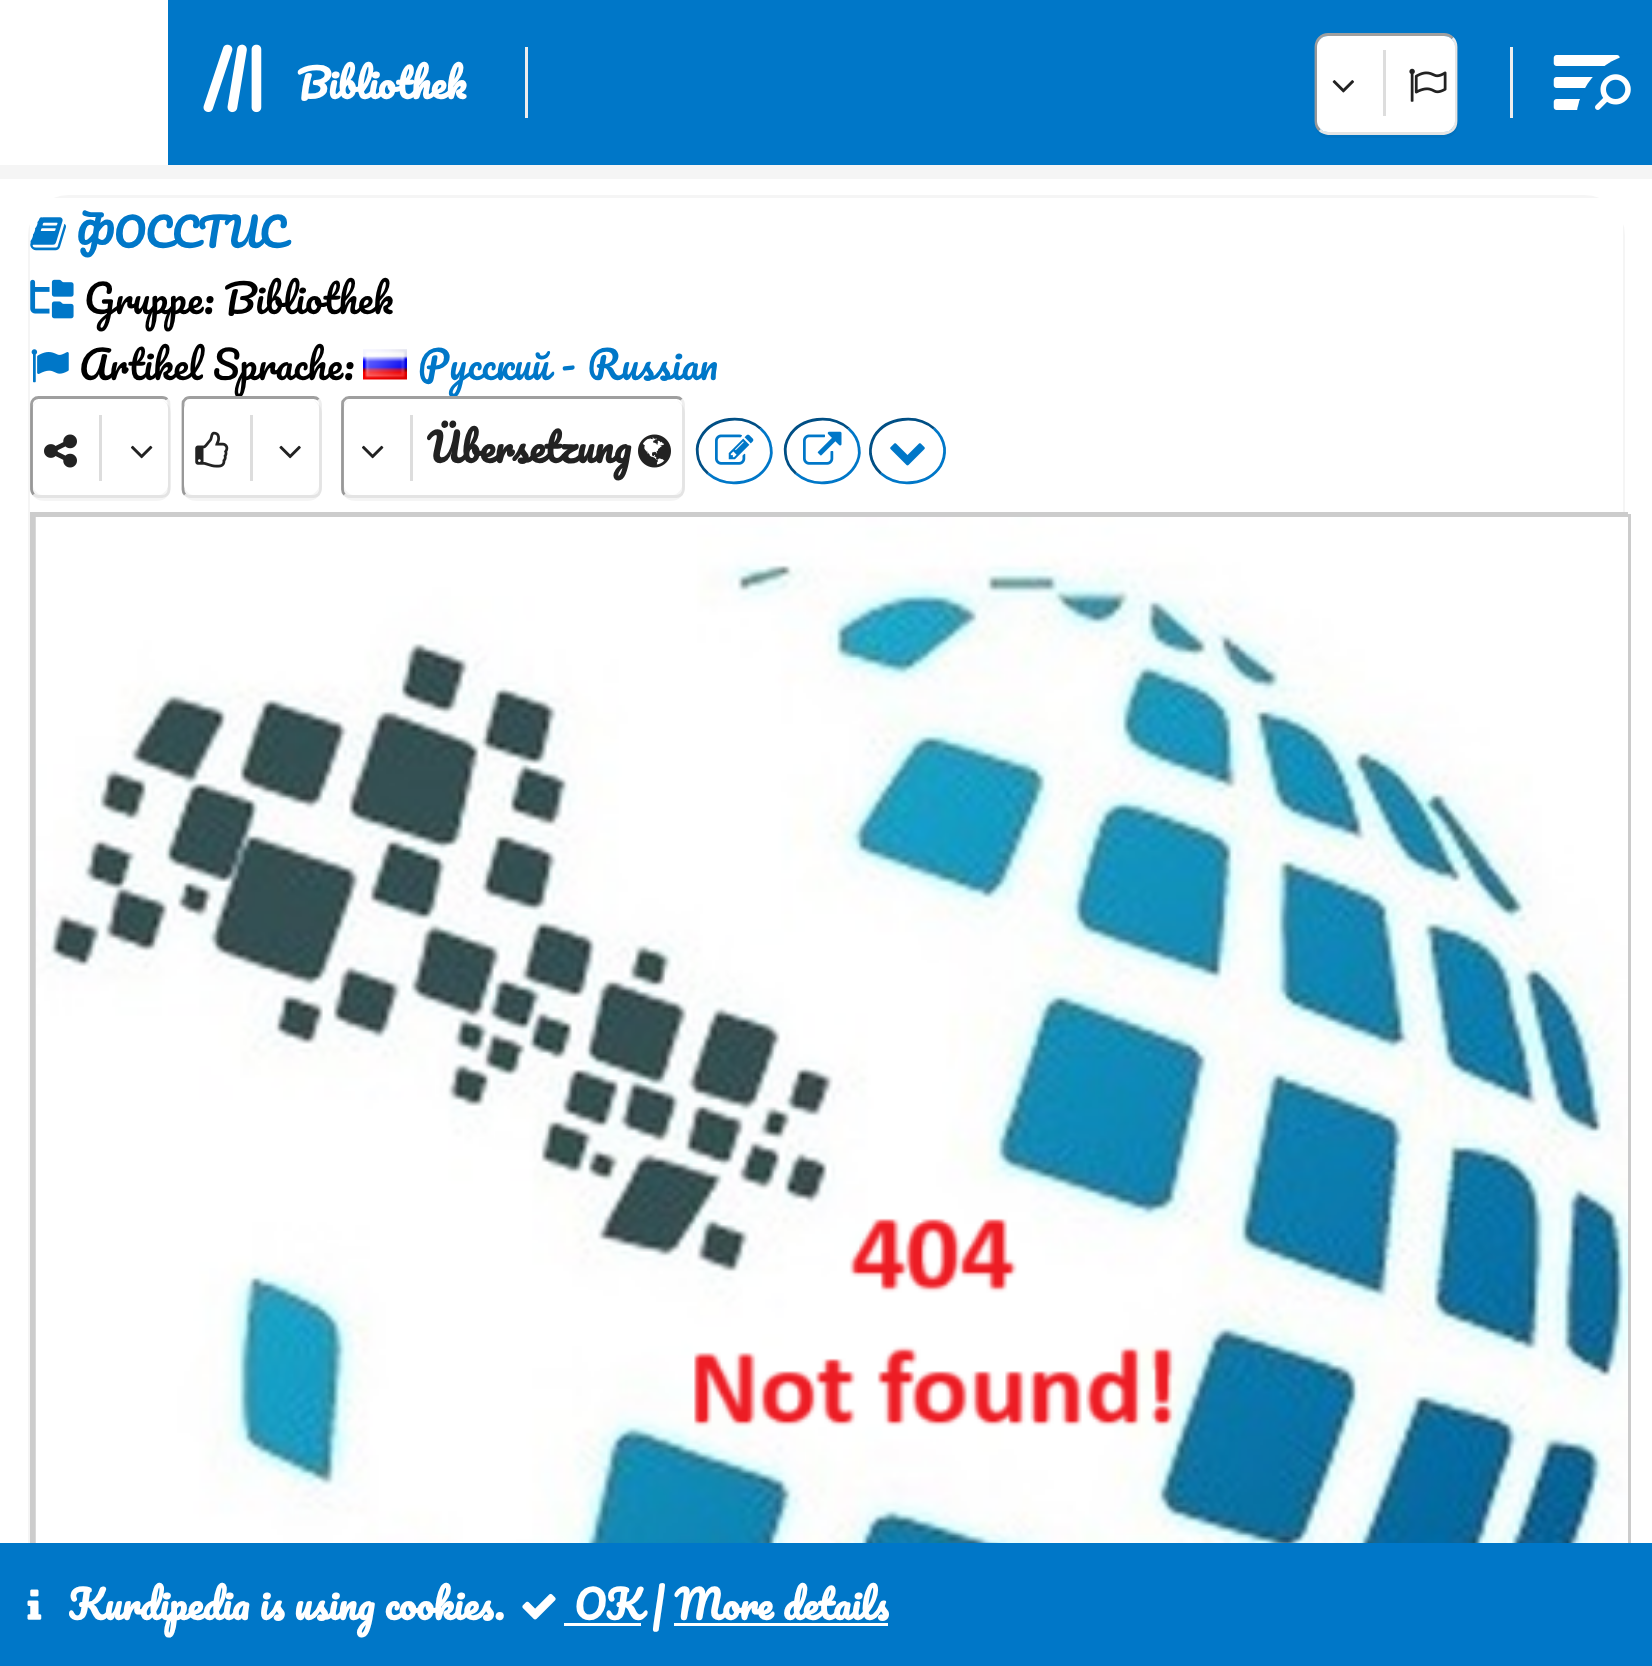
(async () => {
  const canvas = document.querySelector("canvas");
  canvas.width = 1652;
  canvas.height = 1666;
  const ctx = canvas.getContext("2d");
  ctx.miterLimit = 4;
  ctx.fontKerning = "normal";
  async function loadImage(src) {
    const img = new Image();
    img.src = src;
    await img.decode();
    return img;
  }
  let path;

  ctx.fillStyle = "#ffffff";
  ctx.fillRect(0, 0, 1652, 1666);
  ctx.fillStyle = "#0077c8";
  ctx.fillRect(168, 0, 1484, 165);
  ctx.drawImage(await loadImage("img/1.png"), 203, 44, 59, 69);
  ctx.fillStyle = "#eeeeee";
  ctx.fillRect(525, 47, 3, 71);
  path = new Path2D("M1452.5 38C1455 40.5 1456 43.5 1456 47V121C1456 124.5 1455 127.5 1452.5 130C1450 132 1447 133.5 1444 133.5H1328C1325 133.5 1322 132 1319.5 130");
  ctx.strokeStyle = "#eeeeee";
  ctx.lineWidth = 2.8;
  ctx.stroke(path);
  path = new Path2D("M1319.5 130C1317 127.5 1316 124.5 1316 121V47C1316 43.5 1317 40.5 1319.5 38C1322 35.5 1325 34.5 1328 34.5H1444C1447 34.5 1450 35.5 1452.5 38");
  ctx.strokeStyle = "#9f9f9f";
  ctx.stroke(path);
  ctx.fillStyle = "rgba(0, 0, 0, 0.04)";
  path = new Path2D("M1321 39C1317 41 1315 45 1315 50V124C1315 132 1321 138 1329 138H1444C1452 138 1458 132 1458 124V50C1458 44 1454 38 1448 37C1452 38 1455 42 1455 47V121C1455 127 1450 132 1444 132H1328C1322 132 1317 127 1317 121V47C1317 44 1319 41 1321 39Z");
  ctx.fill(path);
  ctx.fillStyle = "#ffffff";
  ctx.beginPath();
  ctx.roundRect(1317, 36, 138, 96, 11);
  ctx.fill();
  ctx.drawImage(await loadImage("img/2.png"), 1332, 80, 22, 13);
  ctx.fillStyle = "#dddddd";
  ctx.fillRect(1383, 50, 3, 66);
  ctx.drawImage(await loadImage("img/3.png"), 1409, 68, 38, 34);
  ctx.fillStyle = "#eeeeee";
  ctx.fillRect(1510, 47, 3, 71);
  ctx.drawImage(await loadImage("img/5.png"), 1553, 55, 67, 55);
  ctx.fillStyle = "#0077c8";
  path = new Path2D("M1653 53H1644C1607 53 1576 84 1576 122V130H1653Z");
  ctx.fill(path);
  ctx.drawImage(await loadImage("img/4.png"), 1595, 74, 36, 36);
  ctx.fillStyle = "#f5f5f5";
  ctx.fillRect(0, 165, 1652, 14);
  ctx.beginPath();
  ctx.roundRect(28, 195, 1597, 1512, 41);
  ctx.fill();
  ctx.fillStyle = "#ffffff";
  ctx.fillRect(30, 198, 1593, 314);
  ctx.drawImage(await loadImage("img/6.png"), 30, 217, 36, 34);
  ctx.drawImage(await loadImage("img/7.png"), 30, 279, 44, 40);
  ctx.drawImage(await loadImage("img/8.png"), 31, 349, 38, 34);
  ctx.drawImage(await loadImage("img/9.png"), 363, 349, 44, 31);
  path = new Path2D("M167 399.5C168.5 400.5 169 402.5 169 404V489.5C169 491.5 168.5 493 167 494.5C166 495.5 164 496.5 162 496.5H38.5C36.5 496.5 35 495.5 33.5 494.5");
  ctx.strokeStyle = "#eeeeee";
  ctx.stroke(path);
  path = new Path2D("M318.5 399.5C319.5 400.5 320.5 402.5 320.5 404V489.5C320.5 491.5 319.5 493 318.5 494.5C317 495.5 315.5 496.5 313.5 496.5H190C188 496.5 186 495.5 185 494.5");
  ctx.stroke(path);
  path = new Path2D("M681.5 399.5C682.5 400.5 683.5 402.5 683.5 404V489.5C683.5 491.5 682.5 493 681.5 494.5C680 495.5 678.5 496.5 676.5 496.5H349C347.5 496.5 345.5 495.5 344.5 494.5");
  ctx.stroke(path);
  path = new Path2D("M760.5 428.5C766 433.5 770.5 440.5 771 448C772 454 770.5 460.5 767 466C755 485.5 725 488 708 473.5");
  ctx.strokeStyle = "#0077c8";
  ctx.stroke(path);
  path = new Path2D("M708 473.5C702.5 468.5 698 461.5 697.5 454C696.5 448 698 441.5 701.5 436C713.5 416.5 743.5 414 760.5 428.5");
  ctx.strokeStyle = "#004f85";
  ctx.stroke(path);
  ctx.drawImage(await loadImage("img/15.png"), 715, 434, 39, 31);
  path = new Path2D("M848.5 428.5C854 433.5 858.5 440.5 859 448C860 454 858.5 460.5 855 466C843 485.5 813 488 796 473.5");
  ctx.strokeStyle = "#0077c8";
  ctx.stroke(path);
  path = new Path2D("M796 473.5C790.5 468.5 786 461.5 785.5 454C784.5 448 786 441.5 789.5 436C801.5 416.5 831.5 414 848.5 428.5");
  ctx.strokeStyle = "#004f85";
  ctx.stroke(path);
  ctx.drawImage(await loadImage("img/16.png"), 803, 431, 39, 34);
  path = new Path2D("M934 428.5C939.5 433.5 943.5 440.5 944.5 448C945 454 943.5 460.5 940.5 466C928 485.5 898 488 881 473.5");
  ctx.strokeStyle = "#0077c8";
  ctx.stroke(path);
  path = new Path2D("M881 473.5C875.5 468.5 871.5 461.5 870.5 454C870 448 871.5 441.5 874.5 436C887 416.5 917 414 934 428.5");
  ctx.strokeStyle = "#004f85";
  ctx.stroke(path);
  ctx.drawImage(await loadImage("img/17.png"), 890, 443, 35, 23);
  ctx.strokeStyle = "#cccccc";
  ctx.lineWidth = 3;
  ctx.strokeRect(31.5, 513.5, 1595, 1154);
  ctx.strokeRect(34.5, 515.5, 1595, 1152);
  ctx.drawImage(await loadImage("img/18.png"), 35, 517, 1593, 1026);
  ctx.fillStyle = "#0077c8";
  ctx.fillRect(0, 1543, 1652, 123);
  ctx.drawImage(await loadImage("img/19.png"), 27, 1589, 15, 31);
  ctx.drawImage(await loadImage("img/20.png"), 522, 1593, 34, 27);
  ctx.fillStyle = "#ffffff";
  ctx.fillRect(564, 1623, 77, 3);
  ctx.fillRect(674, 1623, 214, 3);
  ctx.font = "bold 38.5px Pacifico";
  ctx.fillText("Bibliothek", 297, 99);
  ctx.fillStyle = "#0077c8";
  ctx.fillText("ФОССТИС", 76, 248);
  ctx.font = "38.5px Pacifico";
  ctx.fillStyle = "#000000";
  ctx.fillText("Gruppe: Bibliothek", 84, 314);
  ctx.fillText("Artikel Sprache:", 79, 380);
  ctx.wordSpacing = "1px";
  ctx.fillStyle = "#0077c8";
  ctx.fillText("Pусский - Russian", 418, 380);
  ctx.fillStyle = "#ffffff";
  ctx.fillRect(235, 396, 7, 2);
  ctx.fillRect(447, 396, 8, 2);
  path = new Path2D("M33.5 494.5C32.5 493 31.5 491.5 31.5 489.5V404C31.5 402.5 32.5 400.5 33.5 399.5C35 398 36.5 397.5 38.5 397.5H162C164 397.5 166 398 167 399.5");
  ctx.strokeStyle = "#9f9f9f";
  ctx.lineWidth = 2.8;
  ctx.stroke(path);
  ctx.fillStyle = "rgba(0, 0, 0, 0.04)";
  path = new Path2D("M39 400C34 402 30 407 30 413V487C30 495 36 501 44 501H157C165 501 171 495 171 487V413C171 407 167 401 161 400C165 401 168 405 168 410V484C168 490 163 495 157 495H44C38 495 33 490 33 484V410C33 405 36 402 39 400Z");
  ctx.fill(path);
  ctx.fillStyle = "#ffffff";
  ctx.beginPath();
  ctx.roundRect(33, 399, 135, 96, 11);
  ctx.fill();
  ctx.drawImage(await loadImage("img/10.png"), 44, 434, 33, 34);
  ctx.fillStyle = "#dddddd";
  ctx.fillRect(99, 415, 3, 66);
  ctx.drawImage(await loadImage("img/11.png"), 131, 445, 22, 14);
  path = new Path2D("M185 494.5C183.5 493 183 491.5 183 489.5V404C183 402.5 183.5 400.5 185 399.5C186 398 188 397.5 190 397.5H313.5C315.5 397.5 317 398 318.5 399.5");
  ctx.stroke(path);
  ctx.fillStyle = "rgba(0, 0, 0, 0.04)";
  path = new Path2D("M188 402C184 404 182 408 182 413V487C182 495 188 501 196 501H308C316 501 322 495 322 487V413C322 407 318 402 313 400C316 402 319 405 319 410V484C319 490 314 495 308 495H195C189 495 184 490 184 484V410C184 407 186 404 188 402Z");
  ctx.fill(path);
  ctx.fillStyle = "#ffffff";
  ctx.beginPath();
  ctx.roundRect(184, 399, 135, 96, 11);
  ctx.fill();
  ctx.drawImage(await loadImage("img/12.png"), 195, 431, 34, 37);
  ctx.fillStyle = "#dddddd";
  ctx.fillRect(250, 415, 3, 66);
  ctx.drawImage(await loadImage("img/13.png"), 279, 445, 22, 14);
  path = new Path2D("M344.5 494.5C343 493 342.5 491.5 342.5 489.5V404C342.5 402.5 343 400.5 344.5 399.5C345.5 398 347.5 397.5 349 397.5H676.5C678.5 397.5 680 398 681.5 399.5");
  ctx.stroke(path);
  ctx.fillStyle = "rgba(0, 0, 0, 0.04)";
  path = new Path2D("M349 400C344 402 341 407 341 413V487C341 495 347 501 355 501H671C679 501 685 495 685 487V413C685 407 681 402 676 400C679 402 682 405 682 410V484C682 490 677 495 671 495H355C349 495 344 490 344 484V410C344 406 346 402 349 400Z");
  ctx.fill(path);
  ctx.fillStyle = "#ffffff";
  ctx.beginPath();
  ctx.roundRect(344, 399, 338, 96, 11);
  ctx.fill();
  ctx.drawImage(await loadImage("img/11.png"), 362, 445, 22, 14);
  ctx.fillStyle = "#dddddd";
  ctx.fillRect(410, 415, 3, 66);
  ctx.wordSpacing = "0px";
  ctx.font = "bold 38.5px Pacifico";
  ctx.fillStyle = "#222222";
  ctx.fillText("Übersetzung", 427, 463);
  ctx.drawImage(await loadImage("img/14.png"), 638, 434, 33, 34);
  ctx.fillStyle = "#ffffff";
  ctx.fillText("Kurdipedia is using cookies.", 68, 1620);
  ctx.fillText("OK | More details", 574, 1620);
})();
